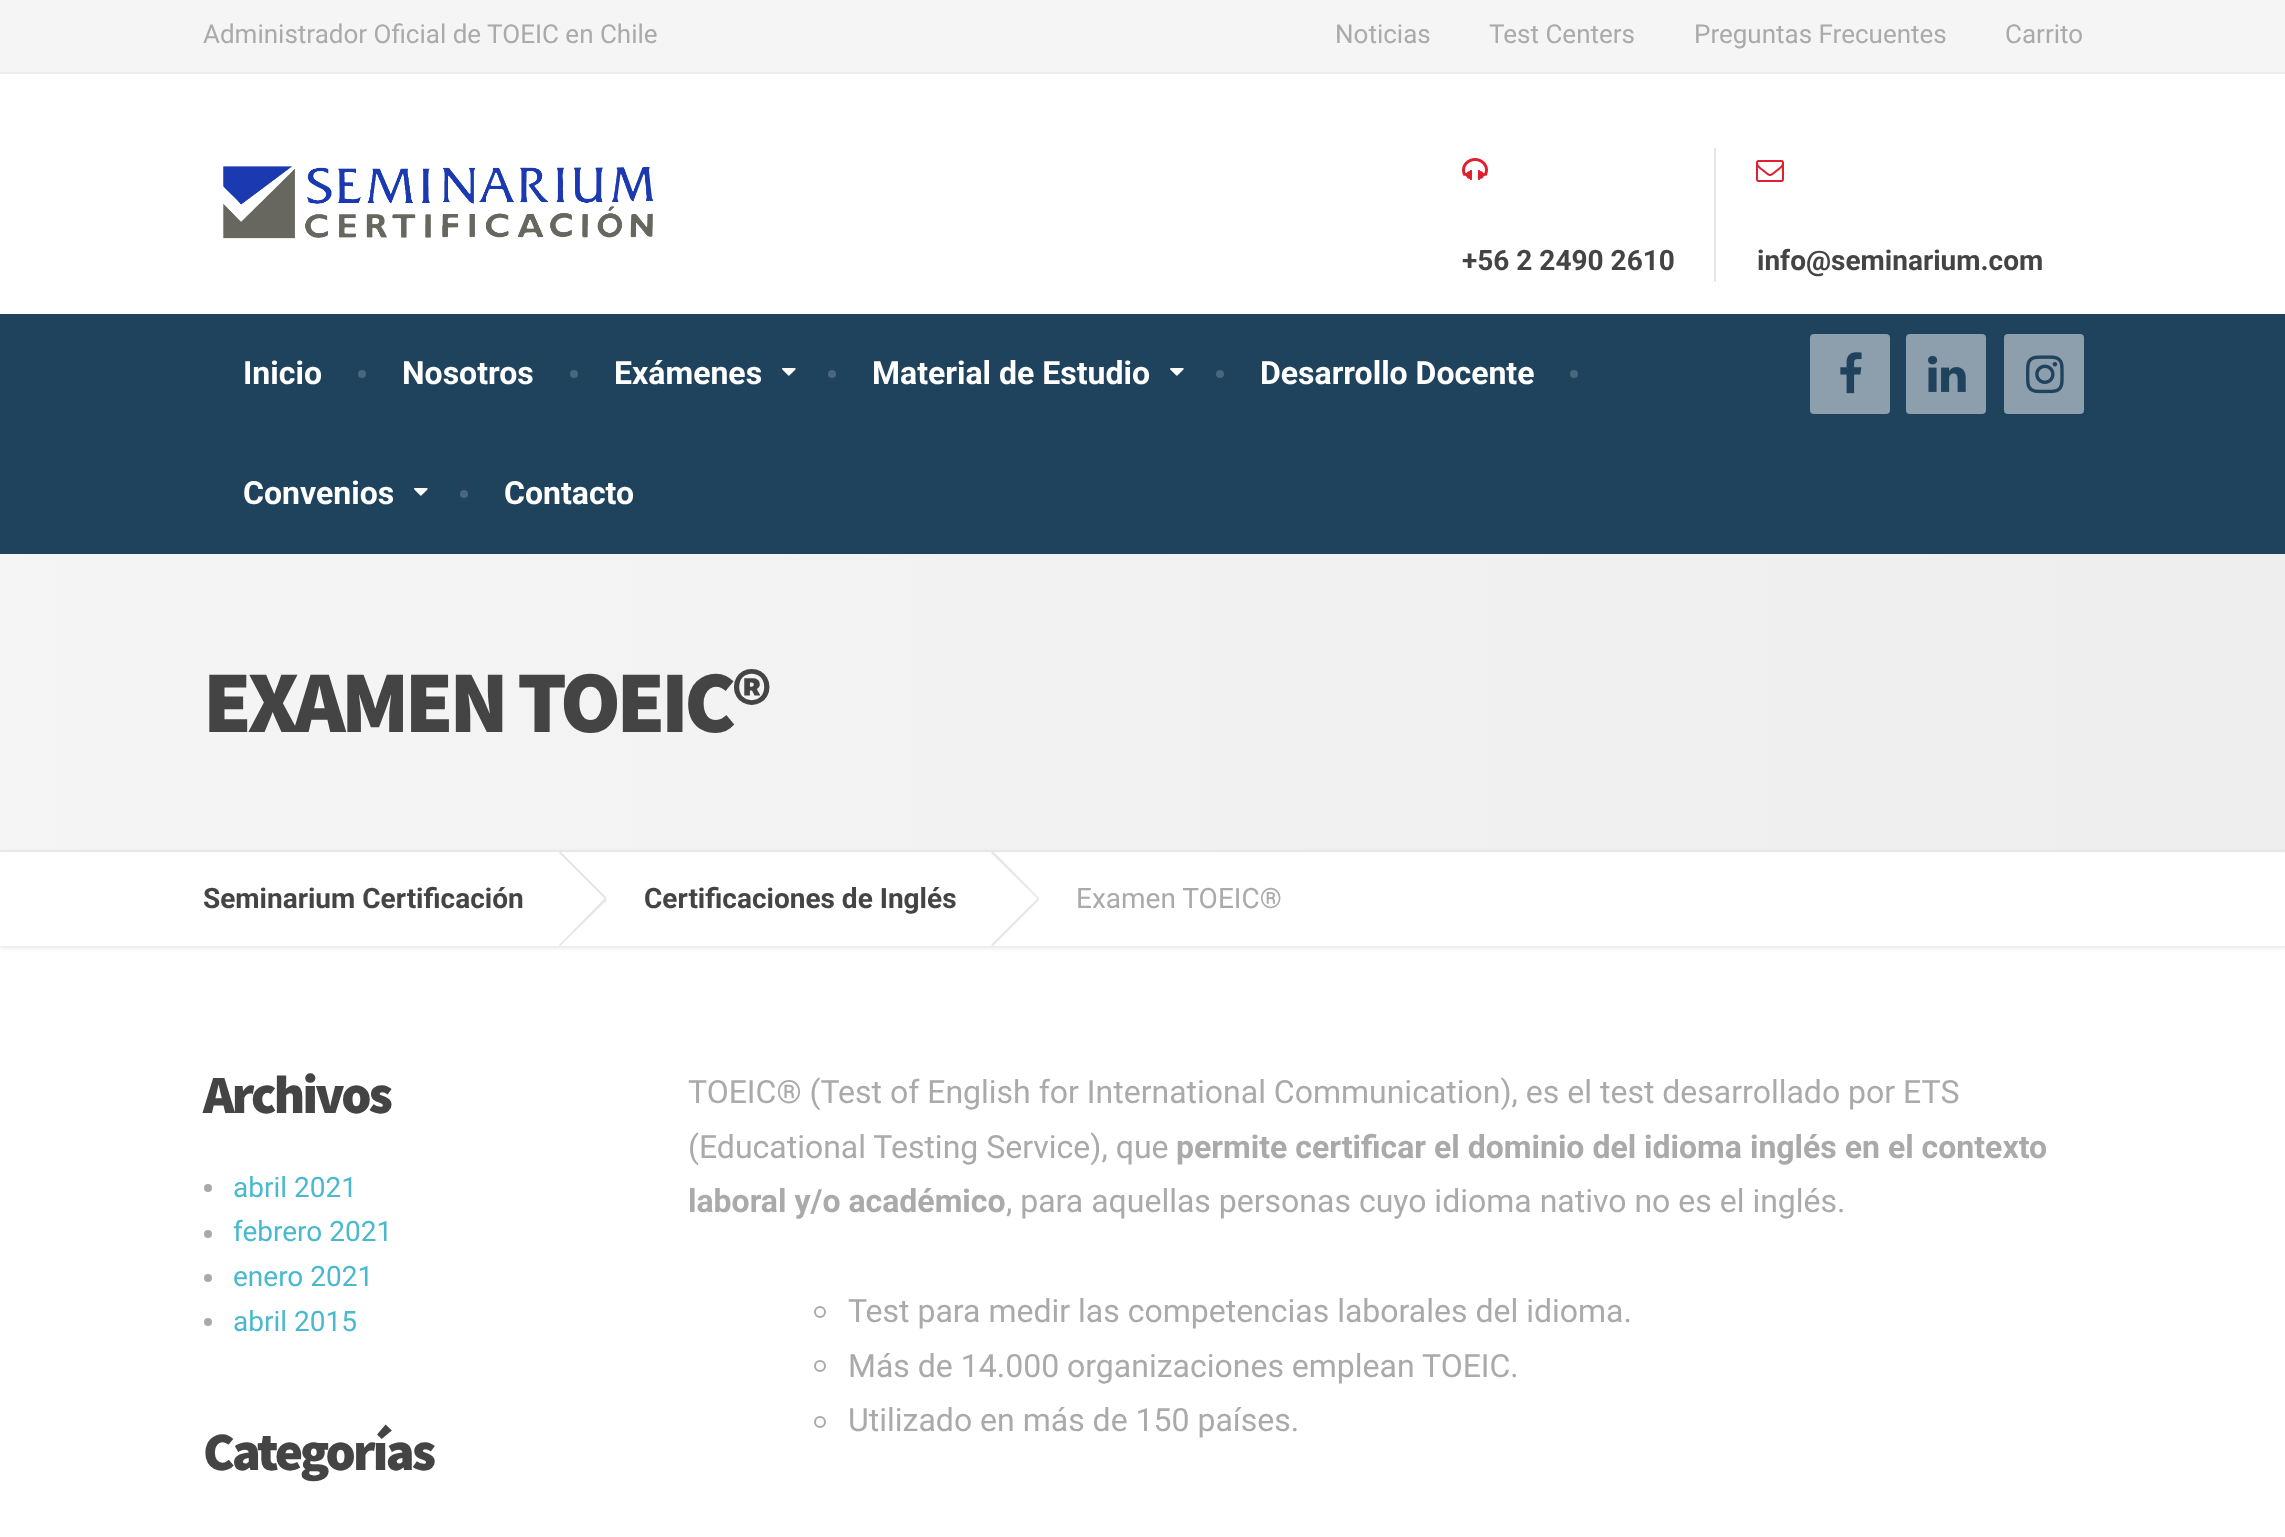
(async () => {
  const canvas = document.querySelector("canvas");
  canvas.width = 2285;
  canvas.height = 1537;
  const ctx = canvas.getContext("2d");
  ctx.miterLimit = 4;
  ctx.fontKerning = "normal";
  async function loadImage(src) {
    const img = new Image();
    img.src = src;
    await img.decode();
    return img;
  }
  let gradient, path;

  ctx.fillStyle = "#ffffff";
  ctx.fillRect(0, 0, 2285, 1537);
  for (const [x, y, w, h, color] of [
    [0, 0, 2285, 72, "#f5f5f5"],
    [0, 72, 2285, 2, "#ededed"],
    [0, 314, 2285, 240, "#1f425d"],
  ]) {
    ctx.fillStyle = color;
    ctx.fillRect(x, y, w, h);
  }
  ctx.drawImage(await loadImage("img/1.png"), 223, 166, 431, 73);
  ctx.drawImage(await loadImage("img/2.png"), 1462, 158, 26, 22);
  ctx.fillStyle = "#e6e6e6";
  ctx.fillRect(1714, 148, 2, 134);
  ctx.drawImage(await loadImage("img/3.png"), 1756, 160, 28, 22);
  ctx.fillStyle = "#4b677c";
  ctx.beginPath();
  ctx.arc(362, 374, 4, 0, Math.PI * 2);
  ctx.fill();
  ctx.beginPath();
  ctx.arc(574, 374, 4, 0, Math.PI * 2);
  ctx.fill();
  ctx.beginPath();
  ctx.arc(832, 374, 4, 0, Math.PI * 2);
  ctx.fill();
  ctx.drawImage(await loadImage("img/4.png"), 782, 368, 14, 8);
  ctx.beginPath();
  ctx.arc(1220, 374, 4, 0, Math.PI * 2);
  ctx.fill();
  ctx.drawImage(await loadImage("img/4.png"), 1170, 368, 14, 8);
  ctx.beginPath();
  ctx.arc(1574, 374, 4, 0, Math.PI * 2);
  ctx.fill();
  ctx.beginPath();
  ctx.arc(464, 494, 4, 0, Math.PI * 2);
  ctx.fill();
  ctx.drawImage(await loadImage("img/4.png"), 414, 488, 14, 8);
  ctx.fillStyle = "#8d9eac";
  ctx.beginPath();
  ctx.roundRect(1810, 334, 80, 80, 4);
  ctx.fill();
  ctx.drawImage(await loadImage("img/5.png"), 1840, 352, 22, 42);
  ctx.beginPath();
  ctx.roundRect(1906, 334, 80, 80, 4);
  ctx.fill();
  ctx.drawImage(await loadImage("img/6.png"), 1928, 355, 38, 37);
  ctx.beginPath();
  ctx.roundRect(2004, 334, 80, 80, 4);
  ctx.fill();
  ctx.drawImage(await loadImage("img/7.png"), 2026, 355, 38, 39);
  gradient = ctx.createLinearGradient(0, 702, 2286, 702);
  gradient.addColorStop(0, "#f5f5f5");
  gradient.addColorStop(1, "#eeeeee");
  ctx.fillStyle = gradient;
  ctx.fillRect(0, 554, 2285, 296);
  ctx.save();
  path = new Path2D("M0 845H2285V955H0ZM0 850H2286V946H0Z");
  ctx.clip(path, "evenodd");
  ctx.fillStyle = "#e6e6e6";
  ctx.filter = "blur(2px)";
  ctx.beginPath();
  ctx.rect(0, 852, 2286, 96);
  ctx.fill();
  ctx.filter = "none";
  ctx.restore();
  ctx.fillStyle = "#e6e6e6";
  ctx.fillRect(0, 850, 2285, 2);
  path = new Path2D("M559 853L560 851L607 898L605 899Z");
  ctx.fill(path);
  path = new Path2D("M605 898L607 900L560 946L559 945Z");
  ctx.fill(path);
  path = new Path2D("M991 853L993 851L1039 898L1038 899Z");
  ctx.fill(path);
  path = new Path2D("M1038 898L1039 900L993 946L991 945Z");
  ctx.fill(path);
  ctx.fillStyle = "#aaaaaa";
  ctx.beginPath();
  ctx.arc(208, 1188, 4, 0, Math.PI * 2);
  ctx.fill();
  ctx.beginPath();
  ctx.arc(208, 1234, 4, 0, Math.PI * 2);
  ctx.fill();
  ctx.beginPath();
  ctx.arc(208, 1278, 4, 0, Math.PI * 2);
  ctx.fill();
  ctx.beginPath();
  ctx.arc(208, 1322, 4, 0, Math.PI * 2);
  ctx.fill();
  ctx.beginPath();
  ctx.arc(820, 1312, 5, 0, Math.PI * 2);
  ctx.strokeStyle = "#aaaaaa";
  ctx.lineWidth = 2;
  ctx.stroke();
  ctx.beginPath();
  ctx.arc(820, 1366, 5, 0, Math.PI * 2);
  ctx.stroke();
  ctx.beginPath();
  ctx.arc(820, 1422, 5, 0, Math.PI * 2);
  ctx.stroke();
  ctx.font = "26px Roboto";
  for (const [text, x, y] of [
    ["Administrador Oficial de TOEIC en Chile", 203, 43],
    ["Noticias", 1335, 43],
    ["Test Centers", 1489, 43],
    ["Preguntas Frecuentes", 1694, 43],
    ["Carrito", 2005, 43],
  ]) {
    ctx.fillText(text, x, y);
  }
  ctx.font = "bold 28px Roboto";
  ctx.fillStyle = "#444444";
  ctx.fillText("+56 2 2490 2610", 1462, 270);
  ctx.fillText("info@seminarium.com", 1757, 270);
  ctx.font = "bold 32px Roboto";
  ctx.fillStyle = "#ffffff";
  for (const [text, x, y] of [
    ["Inicio", 243, 384],
    ["Nosotros", 402, 384],
    ["Exámenes", 614, 384],
    ["Material de Estudio", 872, 384],
    ["Desarrollo Docente", 1260, 384],
    ["Convenios", 243, 504],
    ["Contacto", 504, 504],
  ]) {
    ctx.fillText(text, x, y);
  }
  ctx.letterSpacing = "-4.4px";
  ctx.font = "900 88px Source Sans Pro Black";
  ctx.fillStyle = "#444444";
  ctx.fillText("EXAMEN TOEIC®", 203, 732);
  ctx.letterSpacing = "0px";
  ctx.font = "bold 28px Roboto";
  ctx.fillText("Seminarium Certificación", 203, 908);
  ctx.fillText("Certificaciones de Inglés", 644, 908);
  ctx.font = "28px Roboto";
  ctx.fillStyle = "#aaaaaa";
  ctx.fillText("Examen TOEIC®", 1076, 908);
  ctx.letterSpacing = "-2.75px";
  ctx.font = "900 54px Source Sans Pro Black";
  ctx.fillStyle = "#444444";
  ctx.fillText("Archivos", 203, 1113);
  ctx.letterSpacing = "0px";
  ctx.font = "28px Roboto";
  ctx.fillStyle = "#4ab9cf";
  for (const [text, x, y] of [
    ["abril 2021", 233, 1197],
    ["febrero 2021", 233, 1241],
    ["enero 2021", 233, 1286],
    ["abril 2015", 233, 1331],
  ]) {
    ctx.fillText(text, x, y);
  }
  ctx.letterSpacing = "-2.75px";
  ctx.font = "900 54px Source Sans Pro Black";
  ctx.fillStyle = "#444444";
  ctx.fillText("Categorías", 203, 1470);
  ctx.letterSpacing = "0px";
  ctx.font = "32px Roboto";
  ctx.fillStyle = "#aaaaaa";
  ctx.fillText("TOEIC® (Test of English for International Communication), es el test desarrollado por ETS", 688, 1103);
  ctx.fillText("(Educational Testing Service), que", 688, 1158);
  ctx.font = "bold 32px Roboto";
  ctx.fillText("permite certificar el dominio del idioma inglés en el contexto", 1176, 1158);
  ctx.fillText("laboral y/o académico", 688, 1212);
  ctx.font = "32px Roboto";
  for (const [text, x, y] of [
    [", para aquellas personas cuyo idioma nativo no es el inglés.", 1006, 1212],
    ["Test para medir las competencias laborales del idioma.", 848, 1322],
    ["Más de 14.000 organizaciones emplean TOEIC.", 848, 1377],
    ["Utilizado en más de 150 países.", 848, 1431],
  ]) {
    ctx.fillText(text, x, y);
  }
})();
